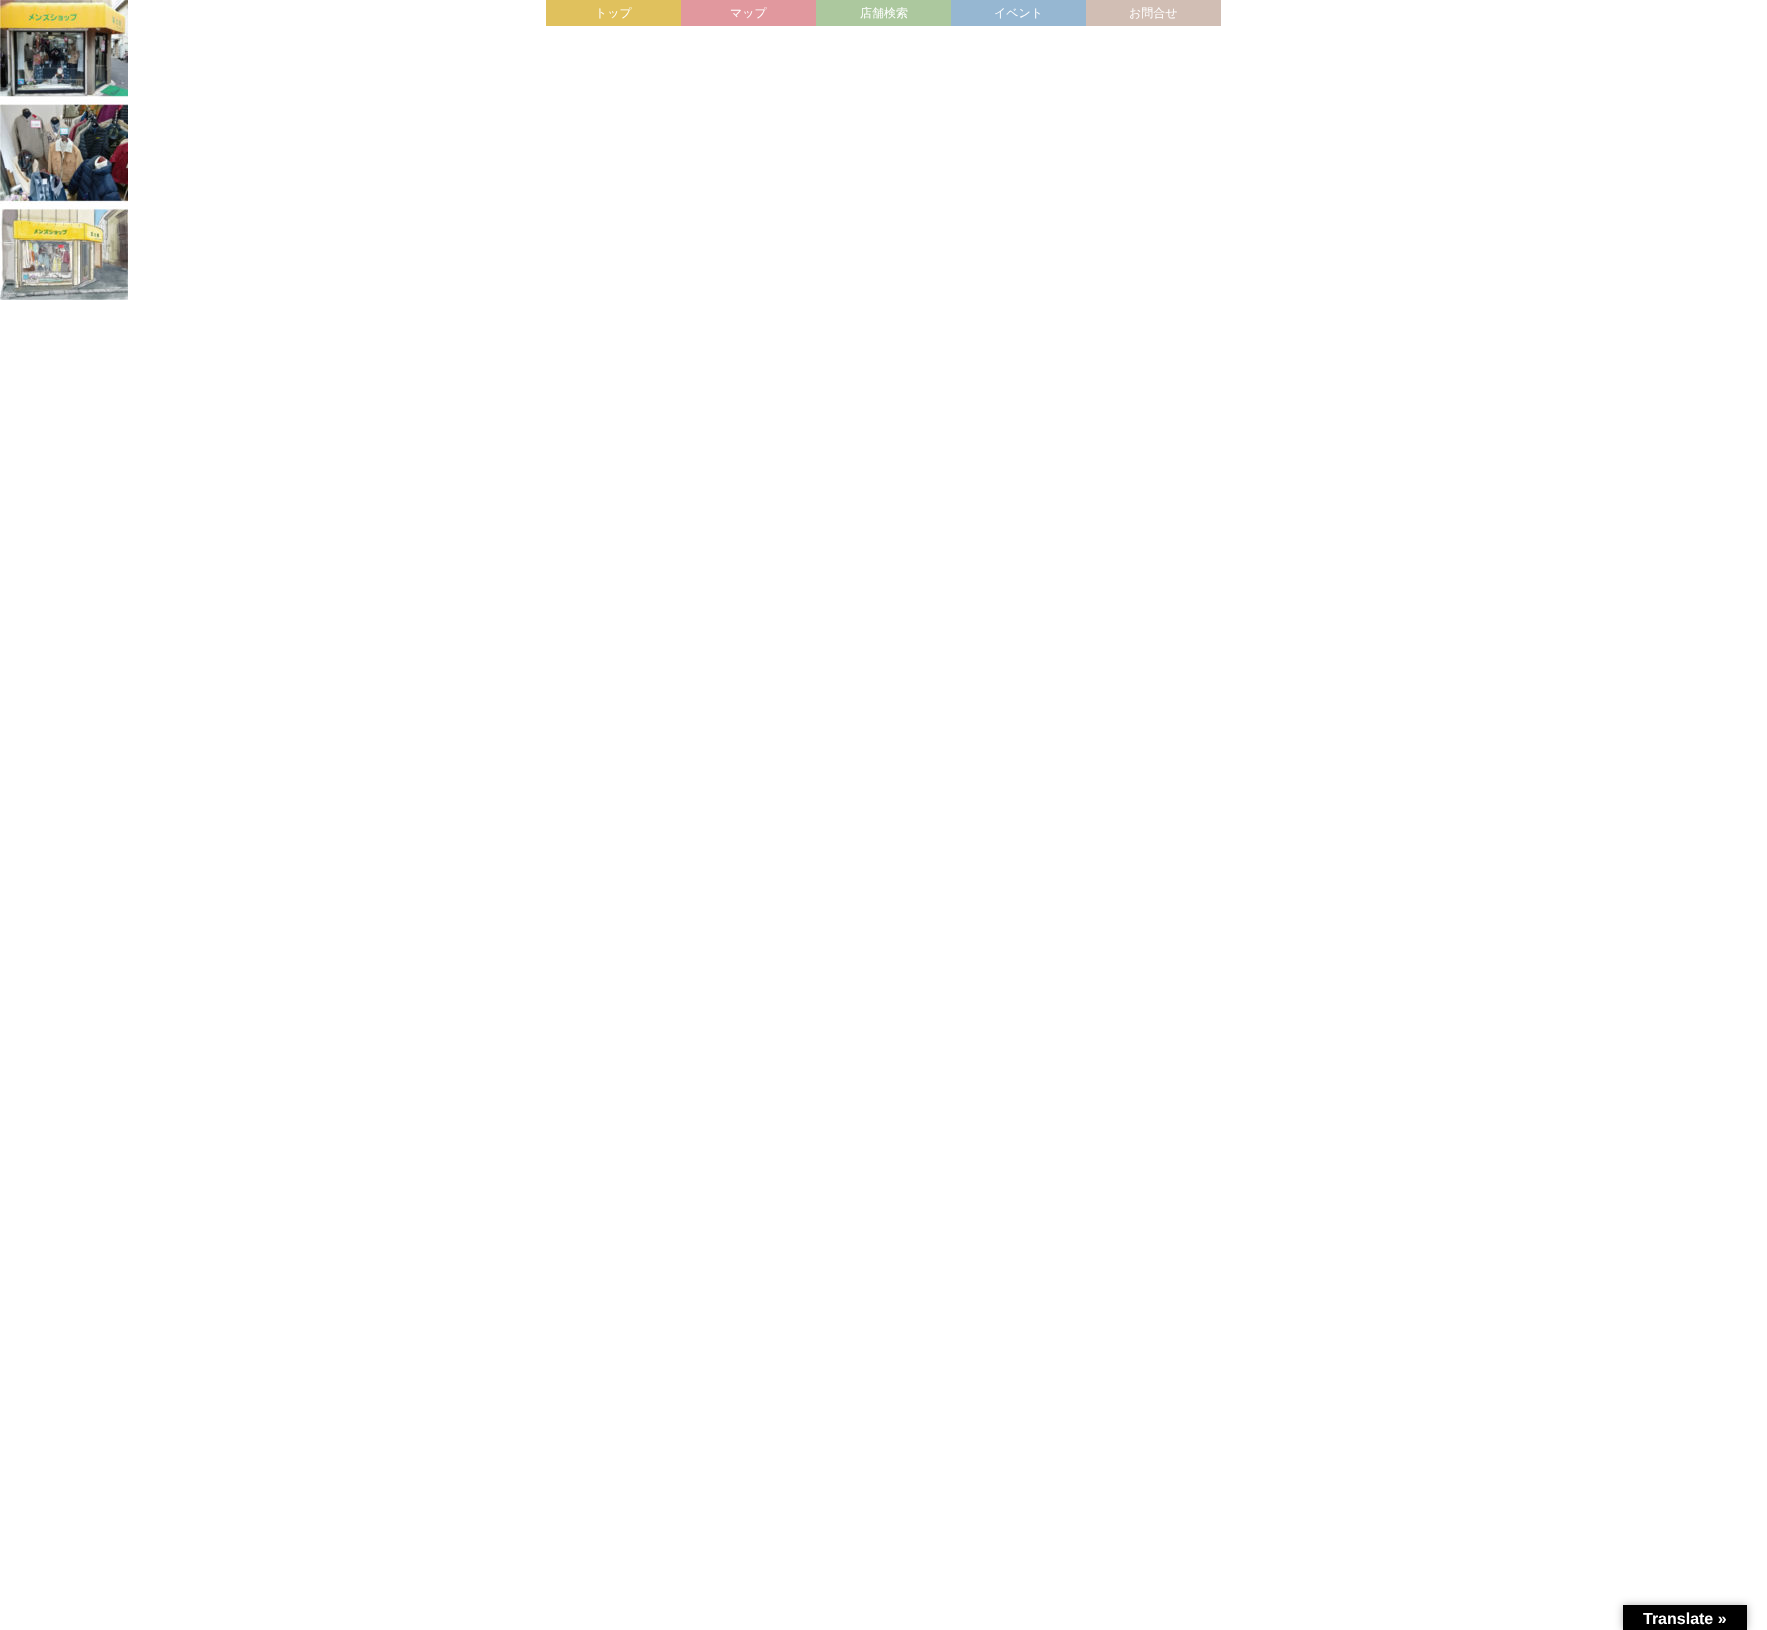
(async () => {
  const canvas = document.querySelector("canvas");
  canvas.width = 1767;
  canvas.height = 1630;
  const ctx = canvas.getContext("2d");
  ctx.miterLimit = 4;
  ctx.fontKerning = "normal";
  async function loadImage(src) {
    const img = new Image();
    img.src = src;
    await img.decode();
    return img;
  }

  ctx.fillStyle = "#ffffff";
  ctx.fillRect(0, 0, 1767, 1630);
  ctx.drawImage(await loadImage("img/1.png"), 0, 0, 128, 300);
  for (const [x, y, w, h, color] of [
    [546, 0, 135, 26, "#e0c15d"],
    [681, 0, 135, 26, "#e1989e"],
    [816, 0, 135, 26, "#acc89e"],
    [951, 0, 135, 26, "#96b7d2"],
    [1086, 0, 135, 26, "#d1beb4"],
  ]) {
    ctx.fillStyle = color;
    ctx.fillRect(x, y, w, h);
  }
  ctx.fillStyle = "rgba(0, 0, 0, 0.3)";
  ctx.filter = "blur(4.5px)";
  ctx.beginPath();
  ctx.rect(1623, 1605, 124, 25);
  ctx.fill();
  ctx.filter = "none";
  ctx.fillStyle = "#000000";
  ctx.fillRect(1623, 1605, 124, 25);
  ctx.font = "500 12px WenQuanYi Zen Hei";
  ctx.fillStyle = "#ffffff";
  for (const [text, x, y] of [
    ["トップ", 595, 17],
    ["マップ", 730, 17],
    ["店舗検索", 860, 17],
    ["イベント", 994, 17],
    ["お問合せ", 1129, 17],
  ]) {
    ctx.fillText(text, x, y);
  }
  ctx.font = "bold 16px Liberation Sans";
  ctx.fillText("Translate »", 1643, 1624);
})();
